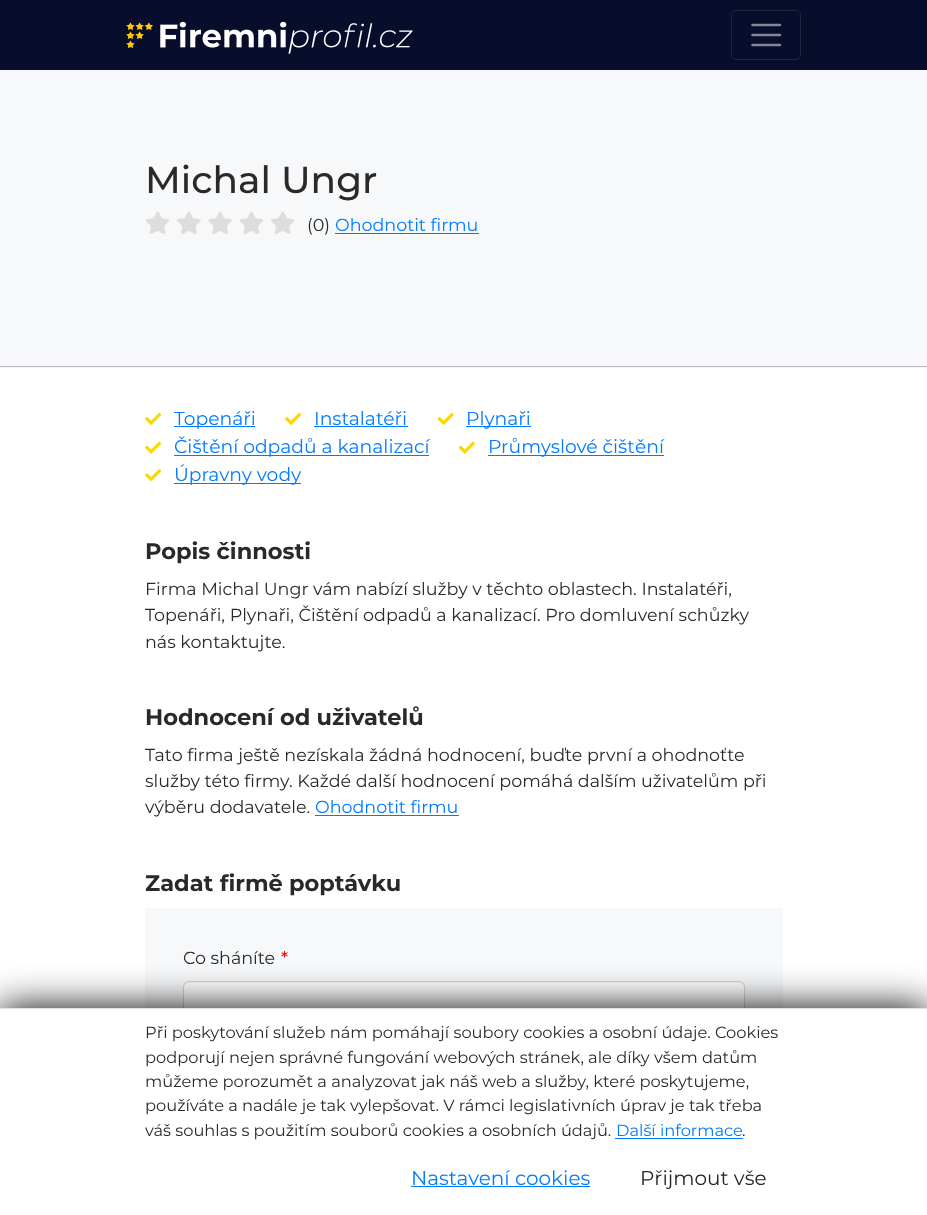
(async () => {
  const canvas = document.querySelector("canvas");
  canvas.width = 927;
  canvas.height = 1215;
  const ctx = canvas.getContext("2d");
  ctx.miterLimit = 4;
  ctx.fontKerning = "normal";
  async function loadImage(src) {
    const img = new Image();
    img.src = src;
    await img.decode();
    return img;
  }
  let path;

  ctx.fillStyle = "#ffffff";
  ctx.fillRect(0, 0, 927, 1215);
  ctx.fillStyle = "#070d2b";
  ctx.fillRect(0, 0, 927, 70);
  ctx.drawImage(await loadImage("img/1.png"), 126, 21, 287, 33);
  ctx.beginPath();
  ctx.roundRect(731.5, 10.5, 69, 49, 4.5);
  ctx.strokeStyle = "#202540";
  ctx.stroke();
  path = new Path2D("M752.5 25H780M752.5 35H780M752.5 45H780");
  ctx.strokeStyle = "#838695";
  ctx.lineWidth = 2.5;
  ctx.lineCap = "round";
  ctx.stroke(path);
  ctx.fillStyle = "#f7f8fa";
  ctx.fillRect(0, 70, 927, 298);
  ctx.fillStyle = "#b8b8ba";
  ctx.fillRect(0, 366, 927, 1);
  ctx.drawImage(await loadImage("img/2.png"), 146, 211, 24, 23);
  ctx.drawImage(await loadImage("img/3.png"), 177, 211, 24, 23);
  ctx.drawImage(await loadImage("img/4.png"), 208, 211, 24, 23);
  ctx.drawImage(await loadImage("img/5.png"), 239, 211, 24, 23);
  ctx.drawImage(await loadImage("img/2.png"), 271, 211, 24, 23);
  ctx.fillStyle = "#007bff";
  ctx.fillRect(335, 233, 144, 1);
  ctx.drawImage(await loadImage("img/6.png"), 145, 412, 17, 13);
  ctx.fillRect(174, 426, 81, 1);
  ctx.drawImage(await loadImage("img/6.png"), 285, 412, 17, 13);
  ctx.fillRect(314, 426, 94, 1);
  ctx.drawImage(await loadImage("img/7.png"), 437, 412, 17, 13);
  ctx.fillRect(466, 426, 65, 1);
  ctx.drawImage(await loadImage("img/8.png"), 145, 441, 17, 13);
  ctx.fillRect(174, 455, 255, 1);
  ctx.drawImage(await loadImage("img/9.png"), 458, 441, 17, 13);
  ctx.fillRect(488, 455, 176, 1);
  ctx.drawImage(await loadImage("img/10.png"), 145, 469, 17, 13);
  for (const [x, y, w, h, color] of [
    [174, 483, 127, 1, "#007bff"],
    [315, 815, 144, 1, "#007bff"],
    [145, 908, 638, 100, "#f7f8fa"],
  ]) {
    ctx.fillStyle = color;
    ctx.fillRect(x, y, w, h);
  }
  ctx.fillStyle = "#ffffff";
  ctx.beginPath();
  ctx.roundRect(184, 983, 560, 170, 5);
  ctx.fill();
  ctx.beginPath();
  ctx.roundRect(183.5, 981.5, 561, 172, 5.5);
  ctx.strokeStyle = "#ced4da";
  ctx.lineWidth = 1;
  ctx.stroke();
  ctx.fillStyle = "#000000";
  ctx.filter = "blur(19px)";
  ctx.beginPath();
  ctx.rect(0, 1008, 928, 207);
  ctx.fill();
  ctx.filter = "none";
  for (const [x, y, w, h, color] of [
    [0, 1009, 927, 206, "#ffffff"],
    [0, 1008, 927, 1, "#dce0e3"],
    [615, 1138, 128, 1, "#007bff"],
    [411, 1186, 179, 1, "#007bff"],
  ]) {
    ctx.fillStyle = color;
    ctx.fillRect(x, y, w, h);
  }
  ctx.font = "500 37.5px Montserrat";
  ctx.fillStyle = "#292929";
  ctx.fillText("Michal Ungr", 145, 193);
  ctx.font = "17.5px Montserrat";
  ctx.fillText("(0)", 307, 231);
  ctx.fillStyle = "#007bff";
  ctx.fillText("Ohodnotit firmu", 335, 231);
  ctx.font = "18.75px Montserrat";
  for (const [text, x, y] of [
    ["Topenáři", 174, 425],
    ["Instalatéři", 314, 425],
    ["Plynaři", 466, 425],
    ["Čištění odpadů a kanalizací", 174, 453],
    ["Průmyslové čištění", 488, 453],
    ["Úpravny vody", 174, 481],
  ]) {
    ctx.fillText(text, x, y);
  }
  ctx.font = "bold 22.5px Montserrat";
  ctx.fillStyle = "#292929";
  ctx.fillText("Popis činnosti", 145, 559);
  ctx.font = "17.5px Montserrat";
  for (const [text, x, y] of [
    ["Firma Michal Ungr vám nabízí služby v těchto oblastech. Instalatéři,", 145, 595],
    ["Topenáři, Plynaři, Čištění odpadů a kanalizací. Pro domluvení schůzky", 145, 621],
    ["nás kontaktujte.", 145, 648],
  ]) {
    ctx.fillText(text, x, y);
  }
  ctx.font = "bold 22.5px Montserrat";
  ctx.fillText("Hodnocení od uživatelů", 145, 725);
  ctx.font = "17.5px Montserrat";
  for (const [text, x, y] of [
    ["Tato firma ještě nezískala žádná hodnocení, buďte první a ohodnoťte", 145, 761],
    ["služby této firmy. Každé další hodnocení pomáhá dalším uživatelům při", 145, 787],
    ["výběru dodavatele.", 145, 813],
  ]) {
    ctx.fillText(text, x, y);
  }
  ctx.fillStyle = "#007bff";
  ctx.fillText("Ohodnotit firmu", 315, 813);
  ctx.font = "bold 22.5px Montserrat";
  ctx.fillStyle = "#292929";
  ctx.fillText("Zadat firmě poptávku", 145, 891);
  ctx.font = "17.5px Montserrat";
  ctx.fillText("Co sháníte", 183, 964);
  ctx.font = "500 17.5px Montserrat";
  ctx.fillStyle = "#ff0000";
  ctx.fillText("*", 281, 964);
  ctx.font = "16.25px Montserrat";
  ctx.fillStyle = "#292929";
  for (const [text, x, y] of [
    ["Při poskytování služeb nám pomáhají soubory cookies a osobní údaje. Cookies", 145, 1038],
    ["podporují nejen správné fungování webových stránek, ale díky všem datům", 145, 1063],
    ["můžeme porozumět a analyzovat jak náš web a služby, které poskytujeme,", 145, 1087],
    ["používáte a nadále je tak vylepšovat. V rámci legislativních úprav je tak třeba", 145, 1111],
    ["váš souhlas s použitím souborů cookies a osobních údajů.", 145, 1136],
  ]) {
    ctx.fillText(text, x, y);
  }
  ctx.fillStyle = "#007bff";
  ctx.fillText("Další informace", 616, 1136);
  ctx.fillStyle = "#292929";
  ctx.fillText(".", 742, 1136);
  ctx.font = "20px Montserrat";
  ctx.fillStyle = "#007bff";
  ctx.fillText("Nastavení cookies", 411, 1185);
  ctx.fillStyle = "#212529";
  ctx.fillText("Přijmout vše", 640, 1185);
})();
